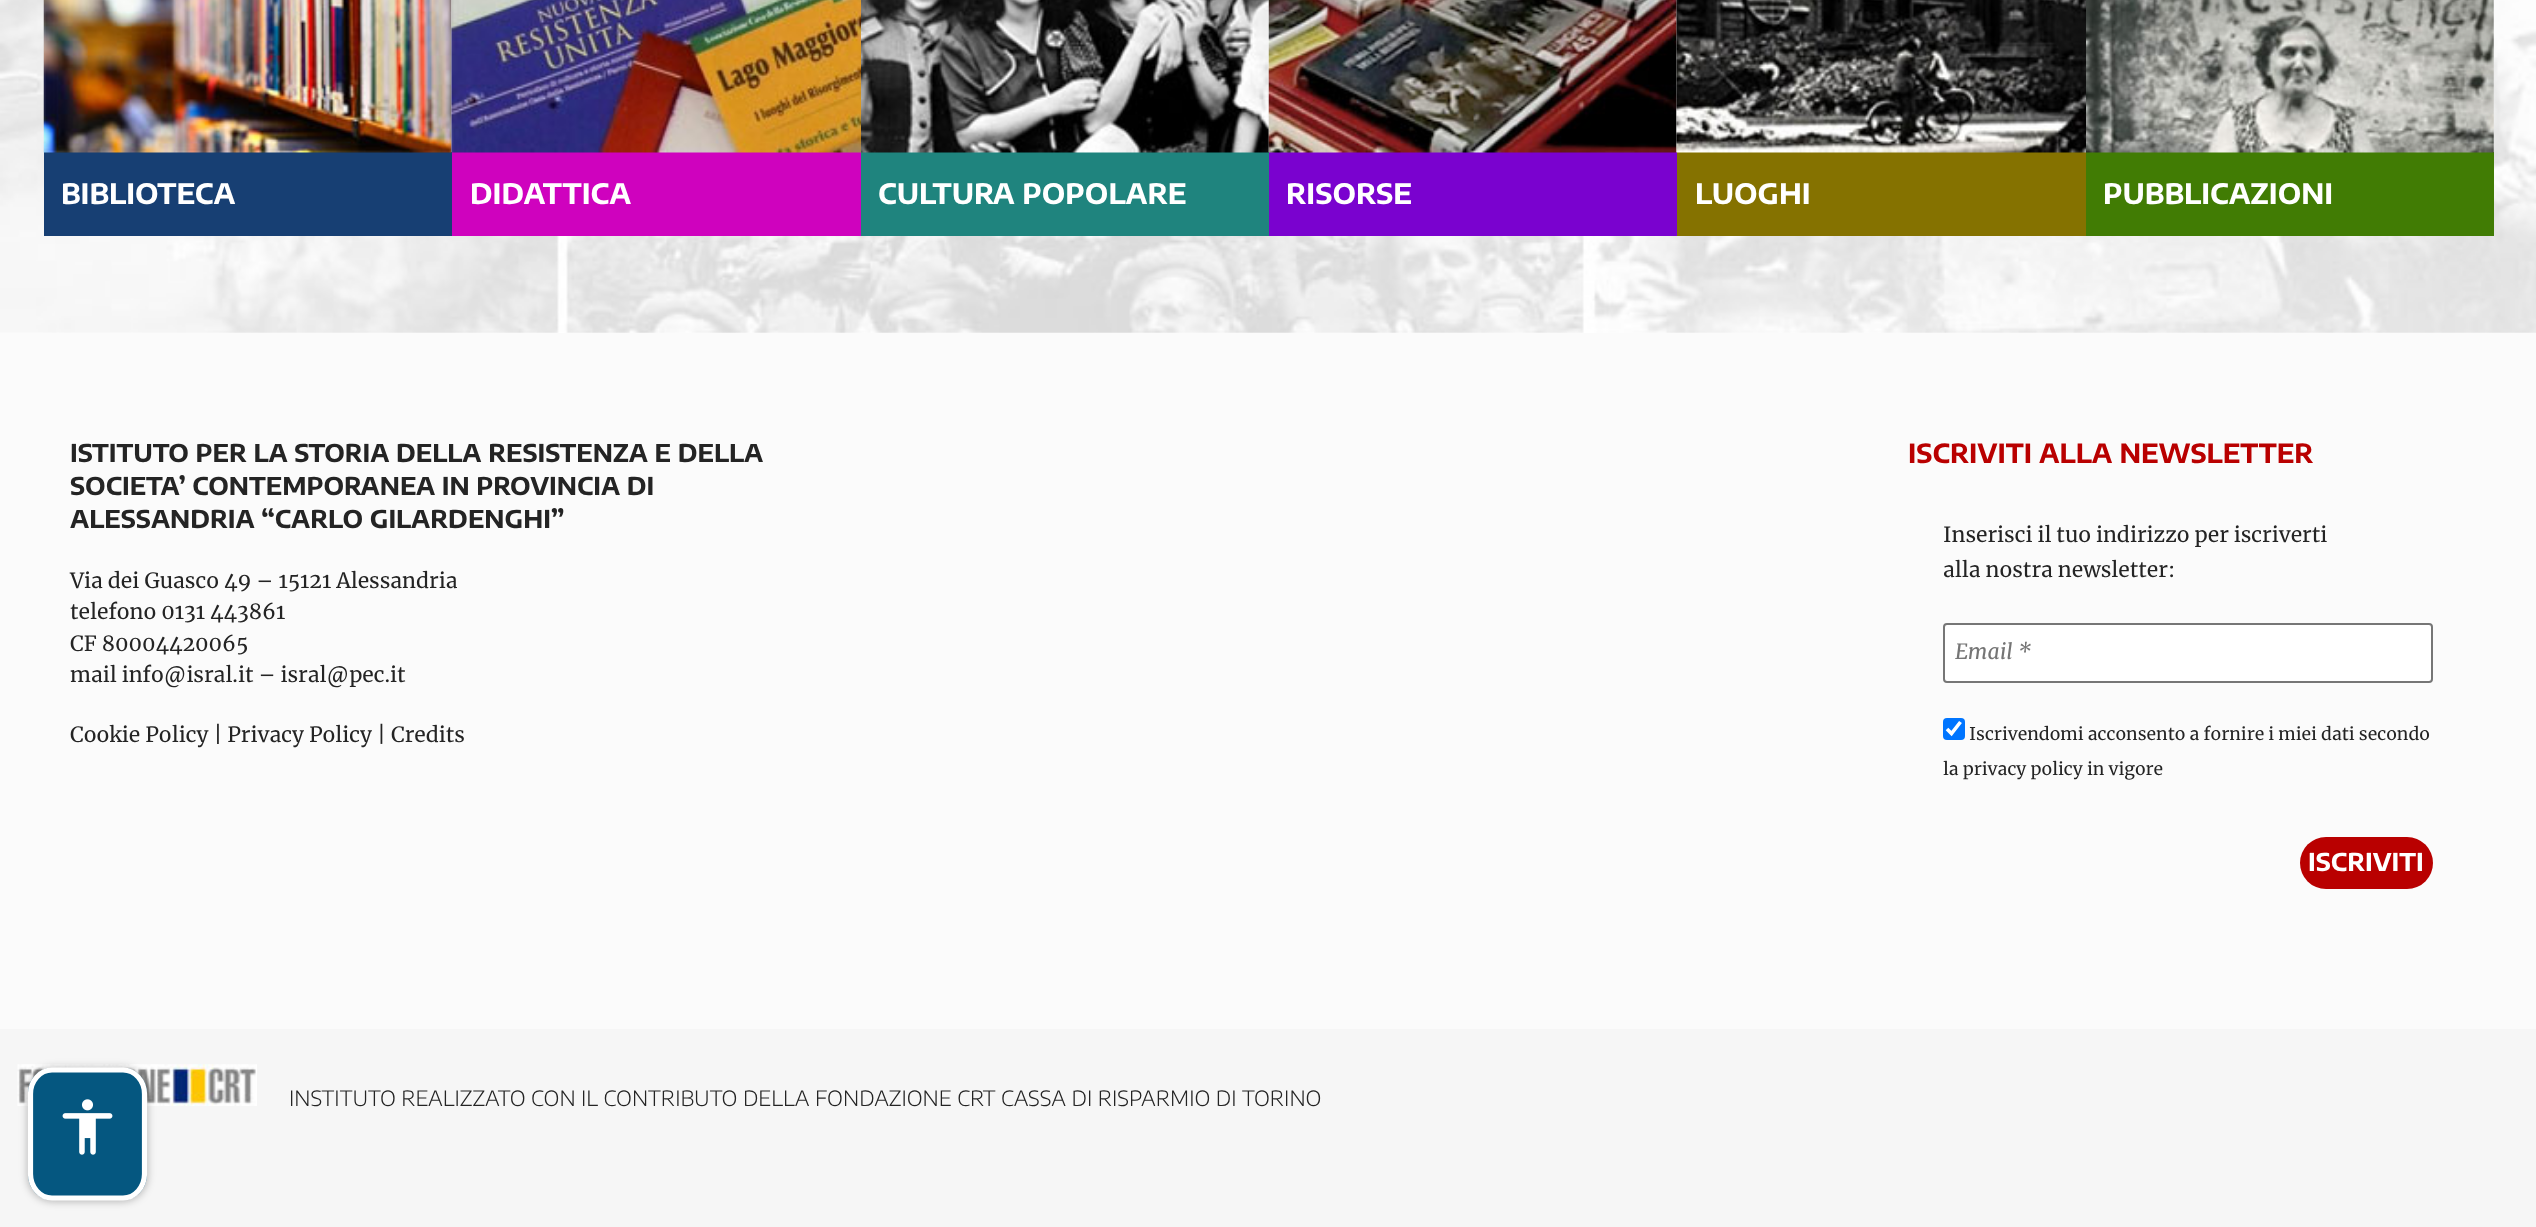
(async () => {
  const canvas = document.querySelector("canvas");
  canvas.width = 2536;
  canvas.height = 1227;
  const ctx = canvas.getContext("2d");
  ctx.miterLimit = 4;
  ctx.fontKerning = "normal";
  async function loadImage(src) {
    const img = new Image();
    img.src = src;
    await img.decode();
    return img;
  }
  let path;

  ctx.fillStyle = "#ffffff";
  ctx.fillRect(0, 0, 2536, 1227);
  ctx.drawImage(await loadImage("img/1.png"), 0, 0, 2536, 333);
  ctx.fillStyle = "#173f73";
  ctx.fillRect(44, 152, 408, 84);
  ctx.drawImage(await loadImage("img/2.png"), 43, 0, 409, 153);
  ctx.fillStyle = "#cf02be";
  ctx.fillRect(452, 152, 409, 84);
  ctx.drawImage(await loadImage("img/3.png"), 451, 0, 410, 153);
  ctx.fillStyle = "#1f847e";
  ctx.fillRect(861, 152, 408, 84);
  ctx.drawImage(await loadImage("img/4.png"), 861, 0, 408, 153);
  ctx.fillStyle = "#7a02cf";
  ctx.fillRect(1269, 152, 408, 84);
  ctx.drawImage(await loadImage("img/5.png"), 1268, 0, 409, 153);
  ctx.fillStyle = "#857200";
  ctx.fillRect(1677, 152, 409, 84);
  ctx.drawImage(await loadImage("img/6.png"), 1676, 0, 410, 153);
  ctx.fillStyle = "#417c04";
  ctx.fillRect(2086, 152, 408, 84);
  ctx.drawImage(await loadImage("img/7.png"), 2086, 0, 408, 153);
  ctx.fillStyle = "#fbfbfb";
  ctx.fillRect(0, 333, 2536, 696);
  ctx.fillStyle = "#ffffff";
  ctx.beginPath();
  ctx.roundRect(1944, 624, 488, 58, 3);
  ctx.fill();
  ctx.strokeStyle = "#767676";
  ctx.lineWidth = 2;
  ctx.stroke();
  ctx.fillStyle = "#0075ff";
  ctx.beginPath();
  ctx.roundRect(1943, 718, 22, 22, 4);
  ctx.fill();
  path = new Path2D("M1947 729L1951.5 733.5L1960.5 722");
  ctx.strokeStyle = "#ffffff";
  ctx.lineWidth = 3.6;
  ctx.stroke(path);
  ctx.fillStyle = "#b90000";
  ctx.beginPath();
  ctx.roundRect(2300, 837, 133, 52, 26);
  ctx.fill();
  ctx.fillStyle = "#f6f6f6";
  ctx.fillRect(0, 1029, 2536, 198);
  ctx.drawImage(await loadImage("img/9.png"), 17, 1064, 240, 42);
  ctx.fillStyle = "rgba(0, 0, 0, 0.3)";
  ctx.filter = "blur(4.5px)";
  ctx.beginPath();
  ctx.roundRect(28, 1068, 119, 133, 25);
  ctx.fill();
  ctx.filter = "none";
  ctx.fillStyle = "#055780";
  path = new Path2D("M52 1068H123C136 1068 147 1079 147 1094V1174C147 1189 136 1200 123 1200H52C39 1200 28 1189 28 1174V1094C28 1079 39 1068 52 1068Z");
  ctx.fill(path);
  path = new Path2D("M52 1070H123C135 1070 144.5 1081 144.5 1094V1174C144.5 1187 135 1198 123 1198H52C40 1198 30.5 1187 30.5 1174V1094C30.5 1081 40 1070 52 1070Z");
  ctx.lineWidth = 5.2;
  ctx.stroke(path);
  ctx.drawImage(await loadImage("img/8.png"), 62, 1099, 51, 56);
  ctx.font = "bold 28px Encode Sans Semi Expanded";
  ctx.fillStyle = "#ffffff";
  for (const [text, x, y] of [
    ["BIBLIOTECA", 61, 204],
    ["DIDATTICA", 470, 204],
    ["CULTURA POPOLARE", 878, 204],
    ["RISORSE", 1286, 204],
    ["LUOGHI", 1695, 204],
    ["PUBBLICAZIONI", 2103, 204],
  ]) {
    ctx.fillText(text, x, y);
  }
  ctx.font = "bold 24.5px Encode Sans Semi Expanded";
  ctx.fillStyle = "#242424";
  for (const [text, x, y] of [
    ["ISTITUTO PER LA STORIA DELLA RESISTENZA E DELLA", 70, 462],
    ["SOCIETA’ CONTEMPORANEA IN PROVINCIA DI", 70, 495],
    ["ALESSANDRIA “CARLO GILARDENGHI”", 70, 528],
  ]) {
    ctx.fillText(text, x, y);
  }
  ctx.font = "21px Merriweather";
  for (const [text, x, y] of [
    ["Via dei Guasco 49 – 15121 Alessandria", 70, 588],
    ["telefono 0131 443861", 70, 619],
    ["CF 80004420065", 70, 651],
    ["mail info@isral.it – isral@pec.it", 70, 682],
    ["Cookie Policy | Privacy Policy | Credits", 70, 742],
  ]) {
    ctx.fillText(text, x, y);
  }
  ctx.font = "bold 26.25px Encode Sans Semi Expanded";
  ctx.fillStyle = "#b90000";
  ctx.fillText("ISCRIVITI ALLA NEWSLETTER", 1908, 463);
  ctx.font = "21px Merriweather";
  ctx.fillStyle = "#242424";
  ctx.fillText("Inserisci il tuo indirizzo per iscriverti", 1943, 542);
  ctx.fillText("alla nostra newsletter:", 1943, 577);
  ctx.font = "italic 21px Merriweather";
  ctx.fillStyle = "#757575";
  ctx.fillText("Email *", 1955, 659);
  ctx.font = "17.5px Merriweather";
  ctx.fillStyle = "#242424";
  ctx.fillText("Iscrivendomi acconsento a fornire i miei dati secondo", 1969, 740);
  ctx.fillText("la privacy policy in vigore", 1943, 775);
  ctx.font = "bold 24.5px Encode Sans Semi Expanded";
  ctx.fillStyle = "#ffffff";
  ctx.fillText("ISCRIVITI", 2308, 871);
  ctx.font = "300 21px Encode Sans Semi Expanded";
  ctx.fillStyle = "#242424";
  ctx.fillText("INSTITUTO REALIZZATO CON IL CONTRIBUTO DELLA FONDAZIONE CRT CASSA DI RISPARMIO DI TORINO", 289, 1106);
})();
